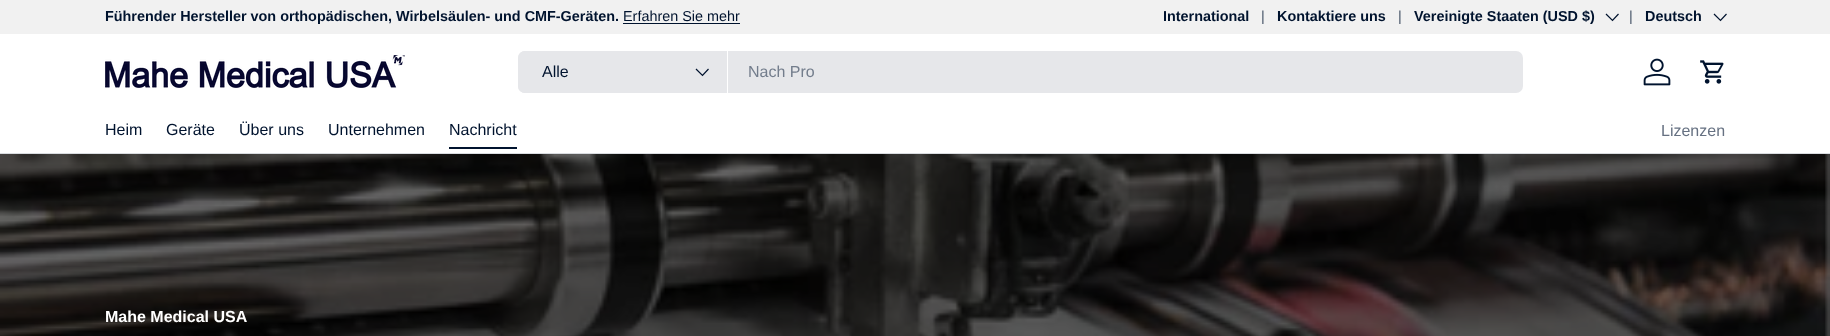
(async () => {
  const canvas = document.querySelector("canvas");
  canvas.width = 1830;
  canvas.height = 336;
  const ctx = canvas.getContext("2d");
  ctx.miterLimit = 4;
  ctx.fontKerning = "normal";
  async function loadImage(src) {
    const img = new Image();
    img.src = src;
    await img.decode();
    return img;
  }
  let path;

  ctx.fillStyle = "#ffffff";
  ctx.fillRect(0, 0, 1830, 336);
  for (const [x, y, w, h, color] of [
    [1818, 154, 12, 182, "#666666"],
    [0, 0, 1830, 34, "#f1f1f1"],
    [623, 23, 117, 1, "#00132e"],
  ]) {
    ctx.fillStyle = color;
    ctx.fillRect(x, y, w, h);
  }
  path = new Path2D("M1618.5 14L1612.5 20.5L1606 14");
  ctx.strokeStyle = "#00132e";
  ctx.lineWidth = 1.2;
  ctx.stroke(path);
  path = new Path2D("M1726.5 14L1720.5 20.5L1714 14");
  ctx.stroke(path);
  ctx.fillStyle = "#d9dce0";
  ctx.fillRect(0, 153, 1830, 1);
  ctx.drawImage(await loadImage("img/1.png"), 105, 55, 300, 33);
  ctx.fillStyle = "#e6e7ea";
  ctx.beginPath();
  ctx.roundRect(518, 51, 1005, 42, 7);
  ctx.fill();
  ctx.beginPath();
  ctx.roundRect(518, 51, 210, 42, [7, 0, 0, 7]);
  ctx.fill();
  ctx.fillStyle = "#ffffff";
  ctx.fillRect(727, 51, 1, 42);
  path = new Path2D("M708.5 69L702.5 75.5L696 69");
  ctx.stroke(path);
  ctx.drawImage(await loadImage("img/2.png"), 1643, 58, 28, 28);
  ctx.drawImage(await loadImage("img/3.png"), 1700, 60, 24, 24);
  ctx.fillStyle = "#00132e";
  ctx.fillRect(449, 147, 68, 2);
  ctx.drawImage(await loadImage("img/4.png"), 0, 154, 1830, 182);
  ctx.font = "bold 14.4px Arimo";
  ctx.fillText("Führender Hersteller von orthopädischen, Wirbelsäulen- und CMF-Geräten.", 105, 21);
  ctx.font = "14.4px Arimo";
  ctx.fillText("Erfahren Sie mehr", 623, 21);
  ctx.font = "bold 14.4px Arimo";
  ctx.fillText("International", 1163, 21);
  ctx.font = "14.4px Arimo";
  ctx.fillStyle = "#485669";
  ctx.fillText("|", 1261, 21);
  ctx.font = "bold 14.4px Arimo";
  ctx.fillStyle = "#00132e";
  ctx.fillText("Kontaktiere uns", 1277, 21);
  ctx.font = "14.4px Arimo";
  ctx.fillStyle = "#485669";
  ctx.fillText("|", 1398, 21);
  ctx.font = "bold 14.4px Arimo";
  ctx.fillStyle = "#00132e";
  ctx.fillText("Vereinigte Staaten (USD $)", 1414, 21);
  ctx.font = "14.4px Arimo";
  ctx.fillStyle = "#485669";
  ctx.fillText("|", 1629, 21);
  ctx.font = "bold 14.4px Arimo";
  ctx.fillStyle = "#00132e";
  ctx.fillText("Deutsch", 1645, 21);
  ctx.font = "16px Arimo";
  ctx.fillText("Alle", 542, 77);
  ctx.fillStyle = "#737d8c";
  ctx.fillText("Nach Pro", 748, 77);
  ctx.fillStyle = "#00132e";
  for (const [text, x, y] of [
    ["Heim", 105, 135],
    ["Geräte", 166, 135],
    ["Über uns", 239, 135],
    ["Unternehmen", 328, 135],
    ["Nachricht", 449, 135],
  ]) {
    ctx.fillText(text, x, y);
  }
  ctx.fillStyle = "#667182";
  ctx.fillText("Lizenzen", 1661, 136);
  ctx.font = "bold 16px Arimo";
  ctx.fillStyle = "#ffffff";
  ctx.fillText("Mahe Medical USA", 105, 322);
})();
